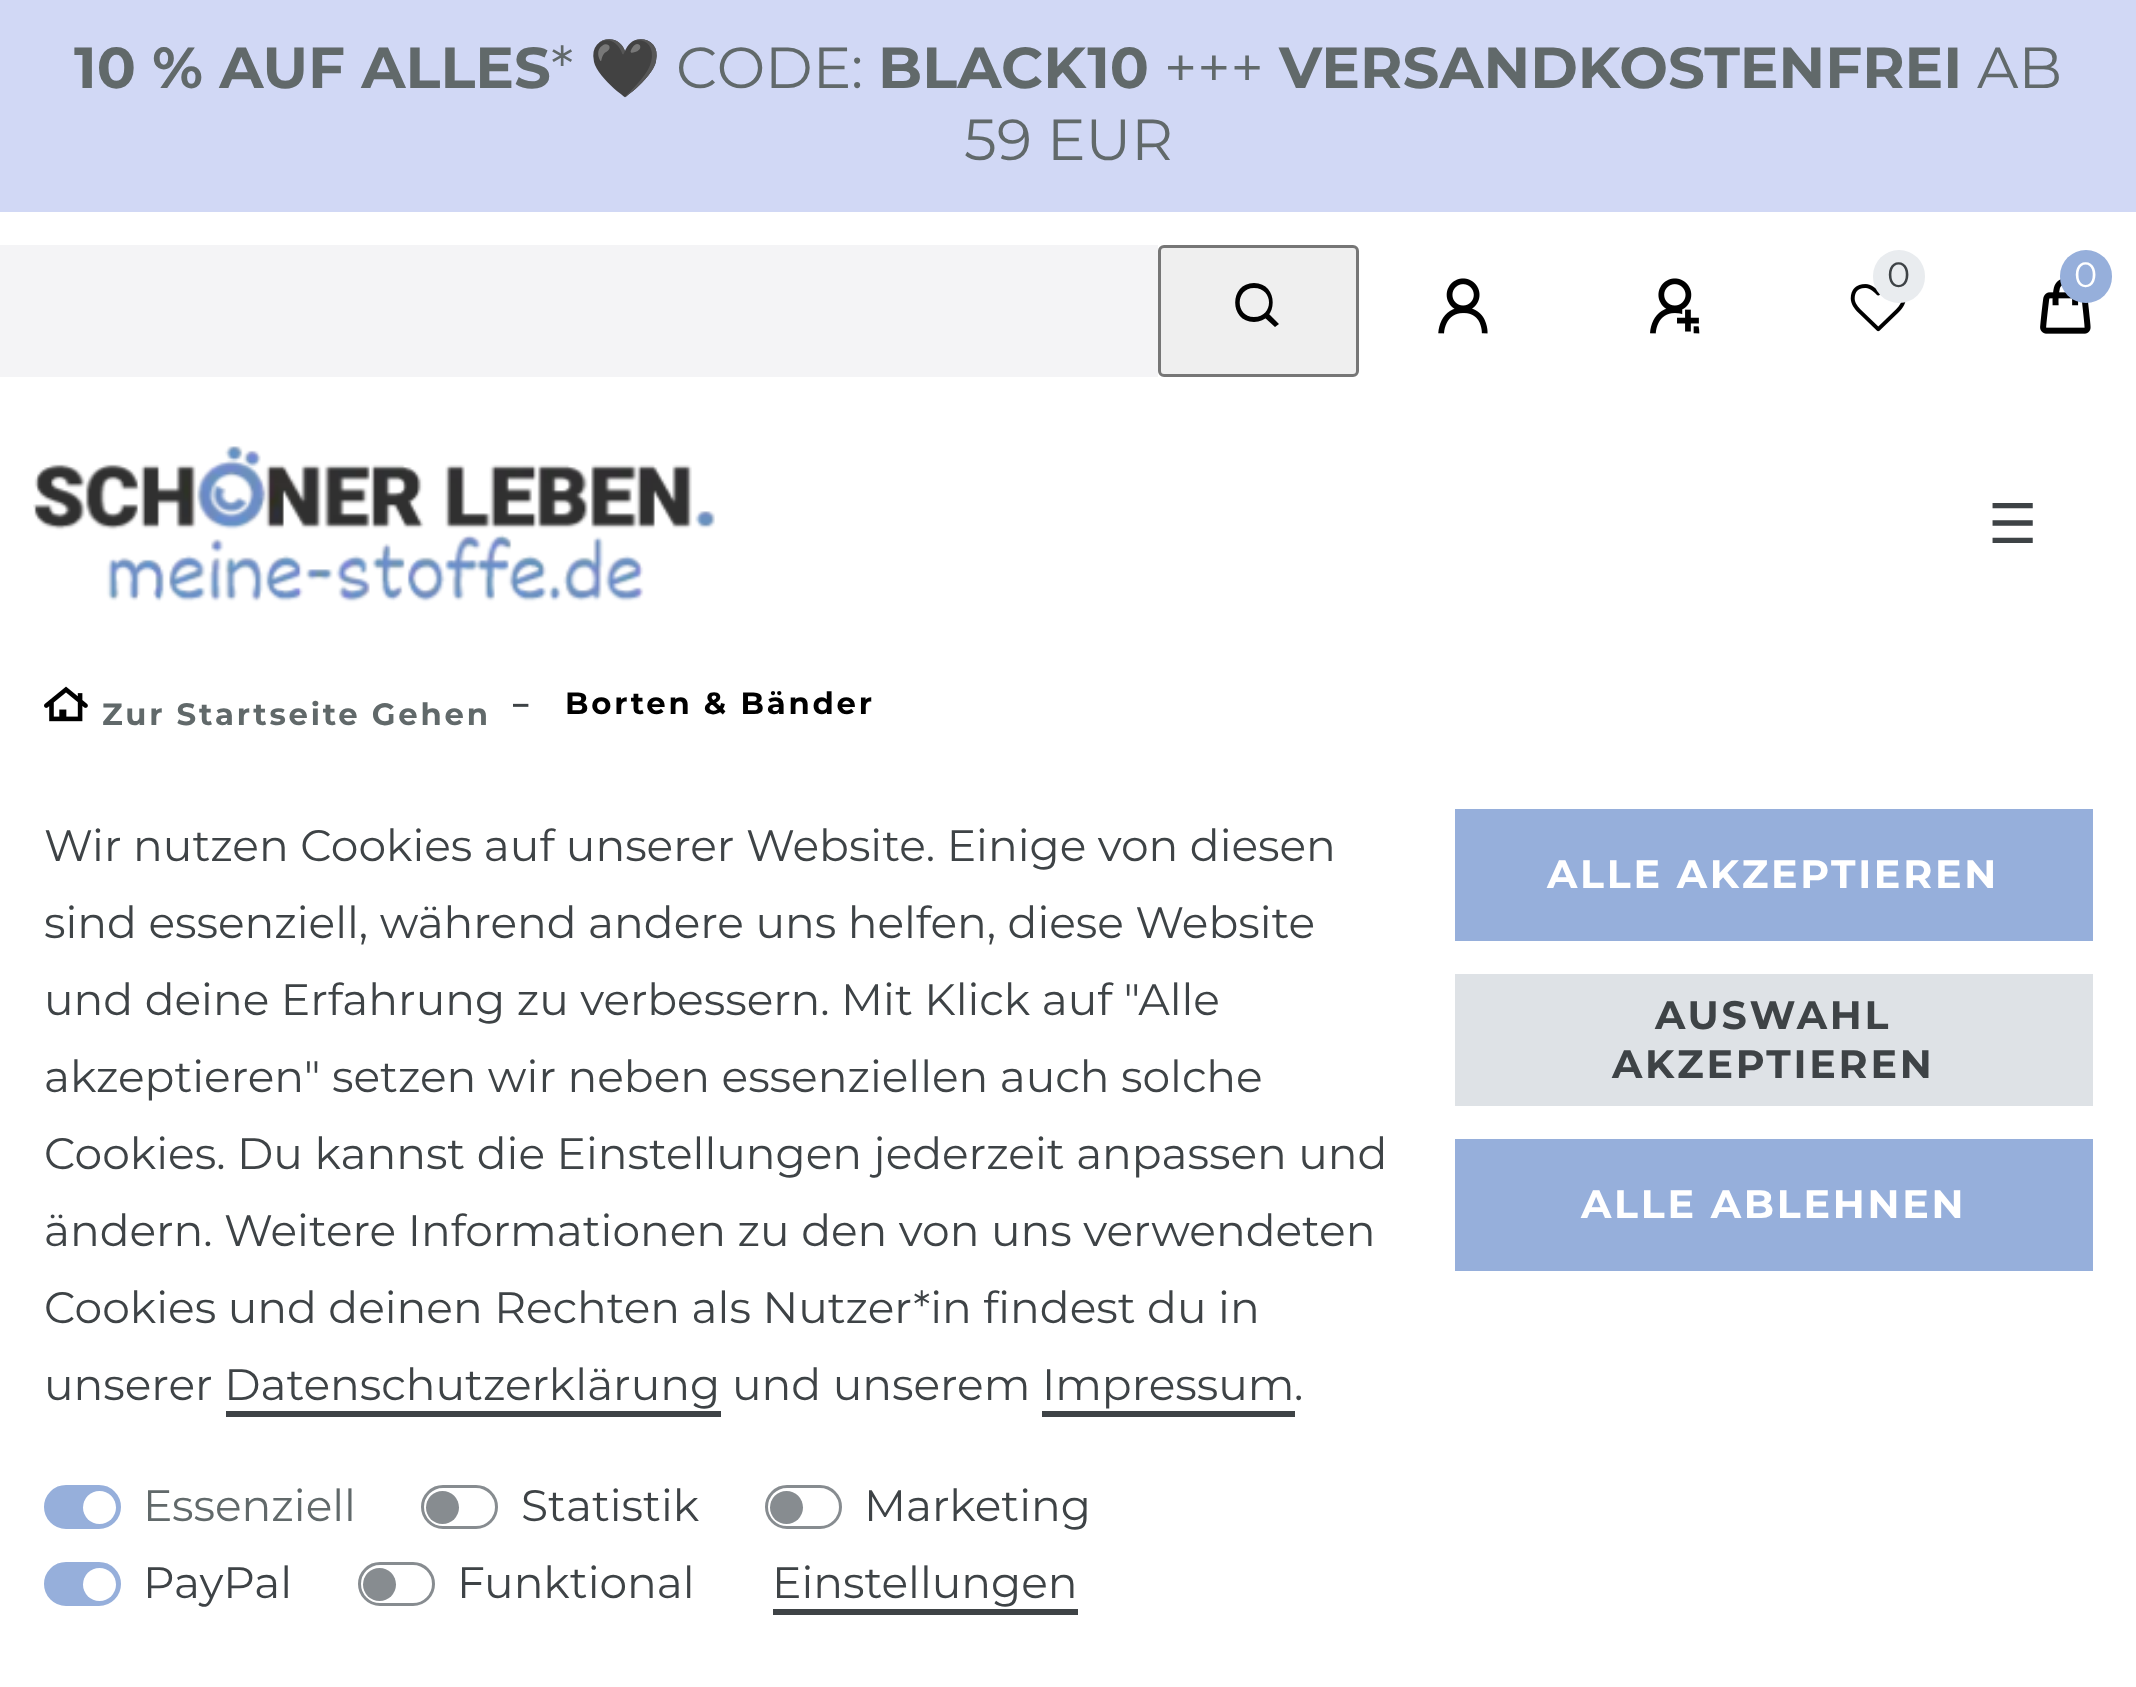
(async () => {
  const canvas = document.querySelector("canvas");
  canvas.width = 2136;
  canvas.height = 1687;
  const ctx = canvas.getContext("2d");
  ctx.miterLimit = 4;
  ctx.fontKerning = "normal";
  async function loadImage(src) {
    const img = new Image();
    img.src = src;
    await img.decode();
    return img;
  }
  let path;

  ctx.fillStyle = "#ffffff";
  ctx.fillRect(0, 0, 2136, 1687);
  ctx.fillStyle = "#d1d8f5";
  ctx.fillRect(0, 0, 2136, 212);
  ctx.fillStyle = "#f4f4f6";
  ctx.fillRect(0, 245, 1158, 132);
  ctx.fillStyle = "#efefef";
  ctx.beginPath();
  ctx.roundRect(1159.5, 246.5, 198, 129, 4.5);
  ctx.fill();
  ctx.strokeStyle = "#767676";
  ctx.lineWidth = 3;
  ctx.stroke();
  ctx.fillStyle = "#000000";
  path = new Path2D("M1254 288C1235 288 1235 317 1254 317C1274 317 1274 288 1254 288ZM1254 283C1279 283 1279 322 1254 322C1229 322 1229 283 1254 283ZM1275 327L1264 317L1268 313L1279 324Z");
  ctx.fill(path);
  ctx.drawImage(await loadImage("img/1.png"), 1850, 284, 56, 48);
  ctx.fillStyle = "#e9ecef";
  ctx.beginPath();
  ctx.roundRect(1873, 250, 52, 53, 26);
  ctx.fill();
  ctx.drawImage(await loadImage("img/2.png"), 2040, 279, 51, 55);
  ctx.fillStyle = "#96afdb";
  ctx.beginPath();
  ctx.roundRect(2060, 250, 52, 53, 26);
  ctx.fill();
  ctx.drawImage(await loadImage("img/3.png"), 1438, 278, 50, 56);
  ctx.drawImage(await loadImage("img/4.png"), 1650, 278, 50, 56);
  ctx.drawImage(await loadImage("img/5.png"), 33, 446, 682, 157);
  ctx.drawImage(await loadImage("img/6.png"), 44, 686, 44, 36);
  ctx.fillStyle = "#3e4346";
  ctx.fillRect(226, 1411, 495, 6);
  ctx.fillRect(1042, 1411, 253, 6);
  ctx.fillStyle = "#96afdb";
  ctx.beginPath();
  ctx.roundRect(45.5, 1486.5, 74, 41, 20.5);
  ctx.fill();
  ctx.strokeStyle = "#96afdb";
  ctx.stroke();
  ctx.fillStyle = "#ffffff";
  ctx.beginPath();
  ctx.arc(99.5, 1507.5, 16.5, 0, Math.PI * 2);
  ctx.fill();
  ctx.beginPath();
  ctx.roundRect(422.5, 1486.5, 74, 41, 20.5);
  ctx.strokeStyle = "#878c90";
  ctx.stroke();
  ctx.fillStyle = "#878c90";
  ctx.beginPath();
  ctx.arc(442.5, 1507.5, 16.5, 0, Math.PI * 2);
  ctx.fill();
  ctx.beginPath();
  ctx.roundRect(766.5, 1486.5, 74, 41, 20.5);
  ctx.stroke();
  ctx.beginPath();
  ctx.arc(786.5, 1507.5, 16.5, 0, Math.PI * 2);
  ctx.fill();
  ctx.fillStyle = "#96afdb";
  ctx.beginPath();
  ctx.roundRect(45.5, 1563.5, 74, 41, 20.5);
  ctx.fill();
  ctx.strokeStyle = "#96afdb";
  ctx.stroke();
  ctx.fillStyle = "#ffffff";
  ctx.beginPath();
  ctx.arc(99.5, 1584.5, 16.5, 0, Math.PI * 2);
  ctx.fill();
  ctx.beginPath();
  ctx.roundRect(359.5, 1563.5, 74, 41, 20.5);
  ctx.strokeStyle = "#878c90";
  ctx.stroke();
  ctx.fillStyle = "#878c90";
  ctx.beginPath();
  ctx.arc(379.5, 1584.5, 16.5, 0, Math.PI * 2);
  ctx.fill();
  for (const [x, y, w, h, color] of [
    [773, 1609, 305, 6, "#3e4346"],
    [1455, 809, 638, 132, "#96afdb"],
    [1455, 974, 638, 132, "#dee2e6"],
    [1455, 1139, 638, 132, "#96afdb"],
  ]) {
    ctx.fillStyle = color;
    ctx.fillRect(x, y, w, h);
  }
  ctx.font = "100 57.75px Montserrat";
  ctx.fillStyle = "#61696a";
  ctx.fillText("10 % AUF ALLES", 74, 88);
  ctx.font = "100 57.75px 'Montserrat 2'";
  ctx.fillText("*", 551, 88);
  ctx.font = "57.75px Noto Color Emoji";
  ctx.fillText("🖤", 589, 88);
  ctx.font = "100 57.75px 'Montserrat 2'";
  ctx.fillText("CODE:", 676, 88);
  ctx.font = "100 57.75px Montserrat";
  ctx.fillText("BLACK10", 878, 88);
  ctx.font = "100 57.75px 'Montserrat 2'";
  ctx.fillText("+++", 1164, 88);
  ctx.font = "100 57.75px Montserrat";
  ctx.fillText("VERSANDKOSTENFREI", 1279, 88);
  ctx.font = "100 57.75px 'Montserrat 2'";
  ctx.fillText("AB", 1977, 88);
  ctx.fillText("59 EUR", 964, 160);
  ctx.font = "100 35px 'Montserrat 2'";
  ctx.fillStyle = "#3e4346";
  ctx.fillText("0", 1887, 287);
  ctx.fillStyle = "#ffffff";
  ctx.fillText("0", 2074, 287);
  ctx.font = "55px DejaVu Sans";
  ctx.fillStyle = "#3e4346";
  ctx.fillText("☰", 1988, 543);
  ctx.letterSpacing = "2.75px";
  ctx.font = "100 30.75px Montserrat";
  ctx.fillStyle = "#61696a";
  ctx.fillText("Zur Startseite Gehen", 102, 725);
  ctx.fillStyle = "#3e4346";
  ctx.fillText("–", 513, 714);
  ctx.fillStyle = "#000000";
  ctx.fillText("Borten & Bänder", 565, 714);
  ctx.letterSpacing = "0px";
  ctx.font = "100 44px 'Montserrat 2'";
  ctx.fillStyle = "#3e4346";
  for (const [text, x, y] of [
    ["Wir nutzen Cookies auf unserer Website. Einige von diesen", 44, 861],
    ["sind essenziell, während andere uns helfen, diese Website", 44, 938],
    ["und deine Erfahrung zu verbessern. Mit Klick auf \"Alle", 44, 1015],
    ["akzeptieren\" setzen wir neben essenziellen auch solche", 44, 1092],
    ["Cookies. Du kannst die Einstellungen jederzeit anpassen und", 44, 1169],
    ["ändern. Weitere Informationen zu den von uns verwendeten", 44, 1246],
    ["Cookies und deinen Rechten als Nutzer*in findest du in", 44, 1323],
    ["unserer Datenschutzerklärung", 44, 1400],
    ["und unserem Impressum", 732, 1400],
    [".", 1294, 1400],
  ]) {
    ctx.fillText(text, x, y);
  }
  ctx.fillStyle = "#61696a";
  ctx.fillText("Essenziell", 143, 1521);
  ctx.fillStyle = "#3e4346";
  for (const [text, x, y] of [
    ["Statistik", 521, 1521],
    ["Marketing", 864, 1521],
    ["PayPal", 143, 1598],
    ["Funktional", 457, 1598],
    ["Einstellungen", 772, 1598],
  ]) {
    ctx.fillText(text, x, y);
  }
  ctx.letterSpacing = "2.75px";
  ctx.font = "100 39.6px Montserrat";
  ctx.fillStyle = "#ffffff";
  ctx.fillText("ALLE AKZEPTIEREN", 1547, 888);
  ctx.fillStyle = "#3e4346";
  ctx.fillText("AUSWAHL", 1655, 1029);
  ctx.fillText("AKZEPTIEREN", 1612, 1078);
  ctx.fillStyle = "#ffffff";
  ctx.fillText("ALLE ABLEHNEN", 1581, 1218);
})();
